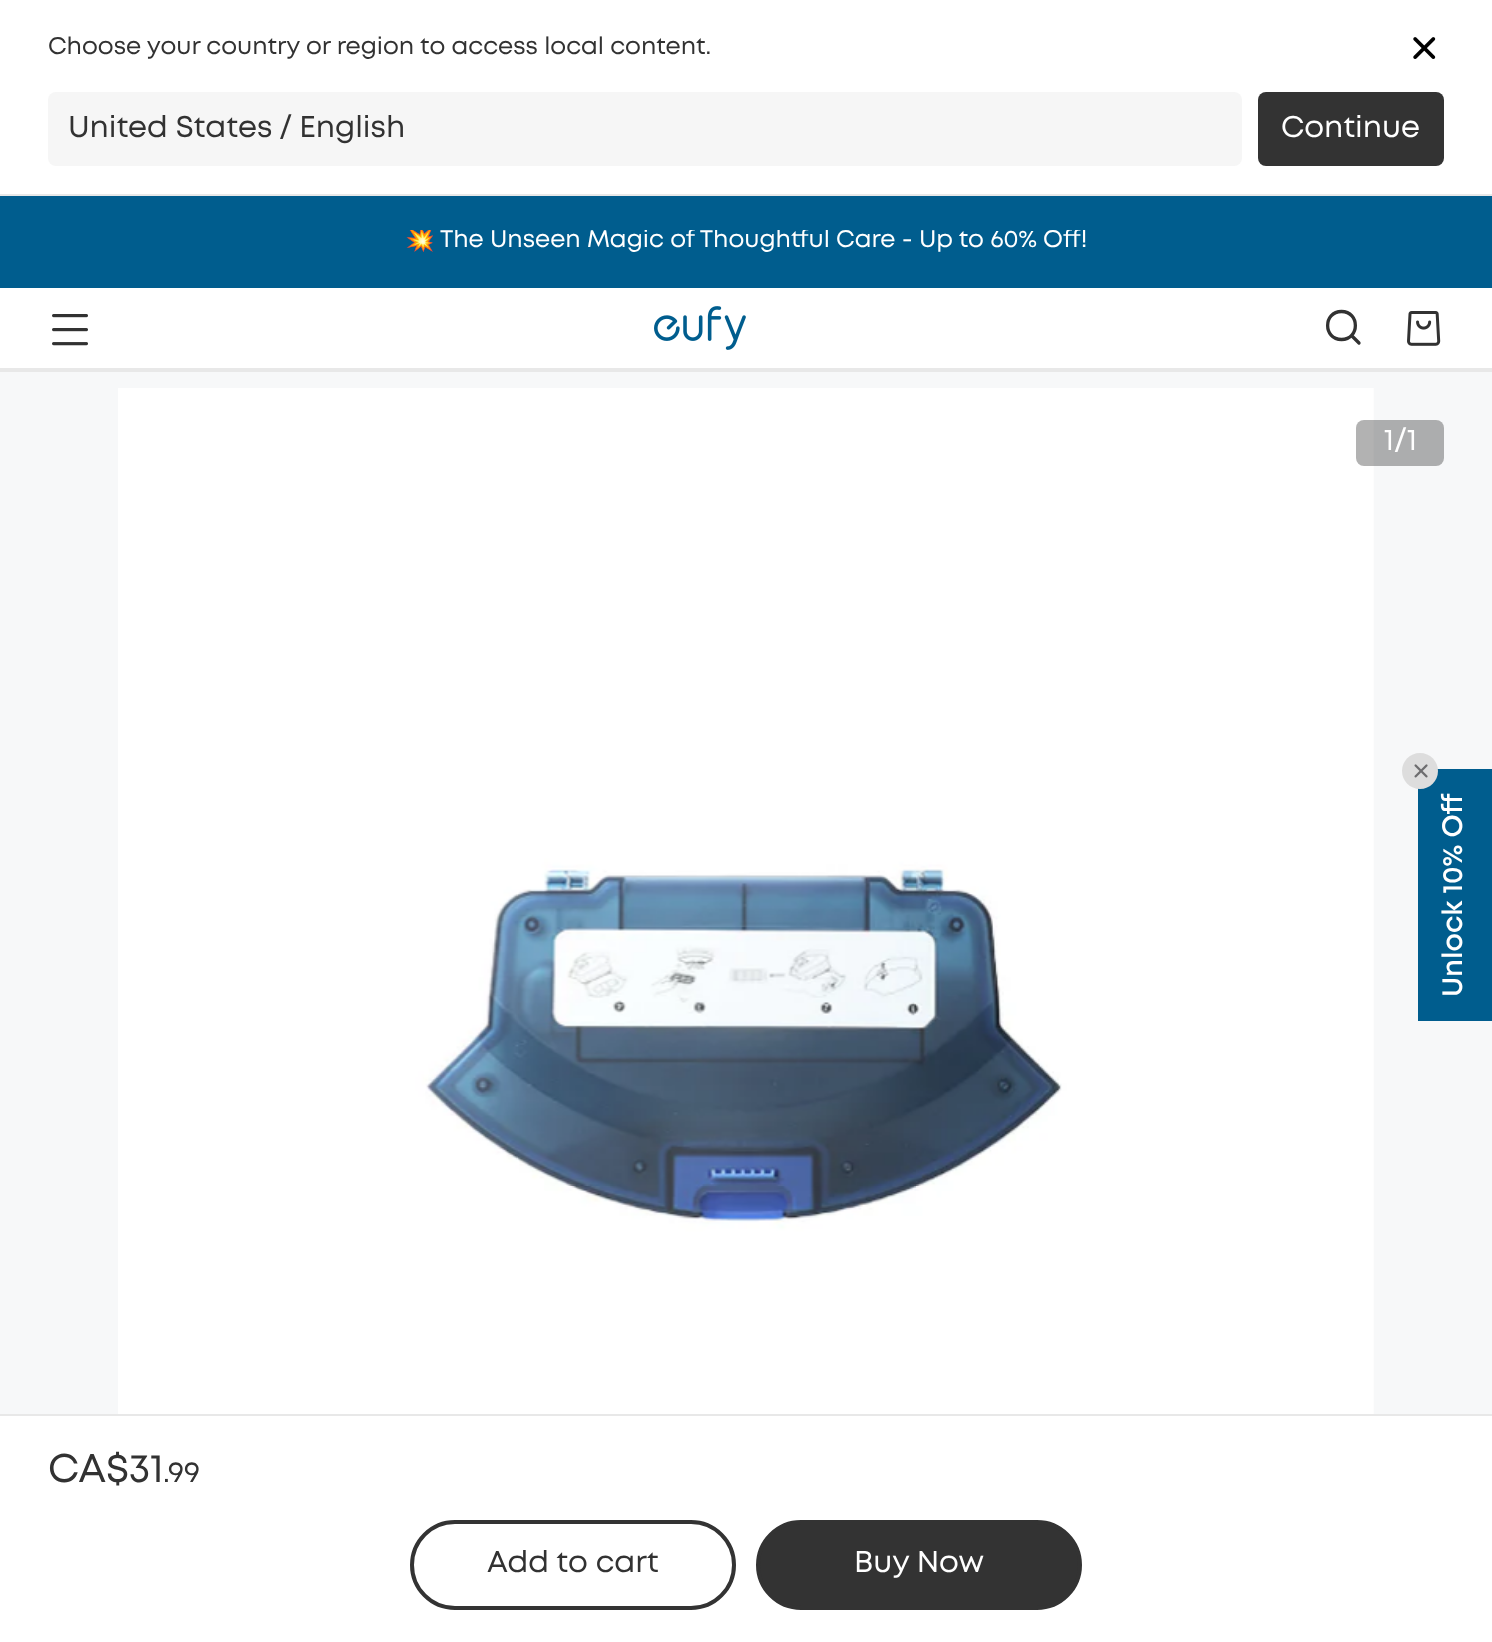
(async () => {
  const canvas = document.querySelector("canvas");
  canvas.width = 1492;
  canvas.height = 1642;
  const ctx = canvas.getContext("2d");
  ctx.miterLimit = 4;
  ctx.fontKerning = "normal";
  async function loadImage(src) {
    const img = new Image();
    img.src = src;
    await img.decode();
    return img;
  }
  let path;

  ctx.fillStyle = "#ffffff";
  ctx.fillRect(0, 0, 1492, 1642);
  ctx.fillStyle = "#e8e8e8";
  ctx.fillRect(0, 194, 1492, 2);
  ctx.drawImage(await loadImage("img/1.png"), 1413, 37, 23, 22);
  ctx.fillStyle = "#f6f6f6";
  ctx.beginPath();
  ctx.roundRect(48, 92, 1194, 74, 8);
  ctx.fill();
  ctx.fillStyle = "#333333";
  ctx.beginPath();
  ctx.roundRect(1258, 92, 186, 74, 8);
  ctx.fill();
  ctx.fillStyle = "#005d8e";
  ctx.fillRect(0, 196, 1492, 92);
  ctx.drawImage(await loadImage("img/2.png"), 52, 314, 36, 32);
  ctx.drawImage(await loadImage("img/3.png"), 654, 306, 92, 44);
  path = new Path2D("M1341.5 339.5C1360 339.5 1360 311.5 1341.5 311.5C1323 311.5 1323 339.5 1341.5 339.5Z");
  ctx.strokeStyle = "#323232";
  ctx.lineWidth = 3.3;
  ctx.stroke(path);
  path = new Path2D("M1352.5 336.5L1359 343");
  ctx.lineCap = "round";
  ctx.stroke(path);
  ctx.drawImage(await loadImage("img/4.png"), 1407, 311, 34, 35);
  ctx.fillStyle = "#e8e8e8";
  ctx.fillRect(0, 368, 1492, 4);
  ctx.fillStyle = "#f7f8f9";
  ctx.fillRect(0, 372, 1492, 1042);
  ctx.drawImage(await loadImage("img/5.png"), 118, 388, 1256, 1026);
  ctx.fillStyle = "rgba(0, 0, 0, 0.3)";
  ctx.beginPath();
  ctx.roundRect(1356, 420, 88, 46, 8);
  ctx.fill();
  ctx.fillStyle = "#e8e8e8";
  ctx.fillRect(0, 1414, 1492, 2);
  ctx.beginPath();
  ctx.roundRect(412, 1522, 322, 86, 43);
  ctx.strokeStyle = "#333333";
  ctx.lineWidth = 4;
  ctx.stroke();
  ctx.fillStyle = "#333333";
  ctx.beginPath();
  ctx.roundRect(758, 1522, 322, 86, 43);
  ctx.fill();
  ctx.stroke();
  ctx.fillStyle = "#005d8e";
  ctx.fillRect(1418, 769, 74, 252);
  ctx.fillStyle = "#dddddd";
  path = new Path2D("M1402 771C1402 761 1410 753 1420 753C1430 753 1438 761 1438 771C1438 781 1430 789 1420 789C1410 789 1402 781 1402 771Z");
  ctx.fill(path);
  ctx.drawImage(await loadImage("img/6.png"), 1414, 764, 14, 14);
  ctx.font = "24px 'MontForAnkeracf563'";
  ctx.fillStyle = "#323232";
  ctx.fillText("Choose your country or region to access local content.", 48, 54);
  ctx.font = "30px 'MontForAnkeracf563'";
  ctx.fillText("United States / English", 68, 137);
  ctx.fillStyle = "#ffffff";
  ctx.fillText("Continue", 1281, 137);
  ctx.save();
  ctx.beginPath();
  ctx.rect(404, 230, 684, 24);
  ctx.clip();
  ctx.font = "bold 24px Noto Color Emoji";
  ctx.fillText("💥", 405, 247);
  ctx.font = "24px 'MontForAnkeracf563'";
  ctx.fillText("The Unseen Magic of Thoughtful Care - Up to 60% Off!", 440, 247);
  ctx.restore();
  ctx.fillText("1/1", 1384, 450);
  ctx.font = "40px 'MontForAnkeracf563'";
  ctx.fillStyle = "#323232";
  ctx.fillText("CA$31", 48, 1482);
  ctx.font = "29px 'MontForAnkeracf563'";
  ctx.fillText(".", 163, 1482);
  ctx.fillText("99", 168, 1482);
  ctx.font = "30px 'MontForAnkeracf563'";
  ctx.fillText("Add to cart", 487, 1572);
  ctx.fillStyle = "#ffffff";
  ctx.fillText("Buy Now", 854, 1572);
  ctx.font = "600 28px 'MontForAnkeracf563'";
  ctx.save();
  ctx.translate(1462, 997);
  ctx.rotate(-90 * Math.PI / 180);
  ctx.fillText("Unlock 10% Off", 0, 0);
  ctx.restore();
})();
